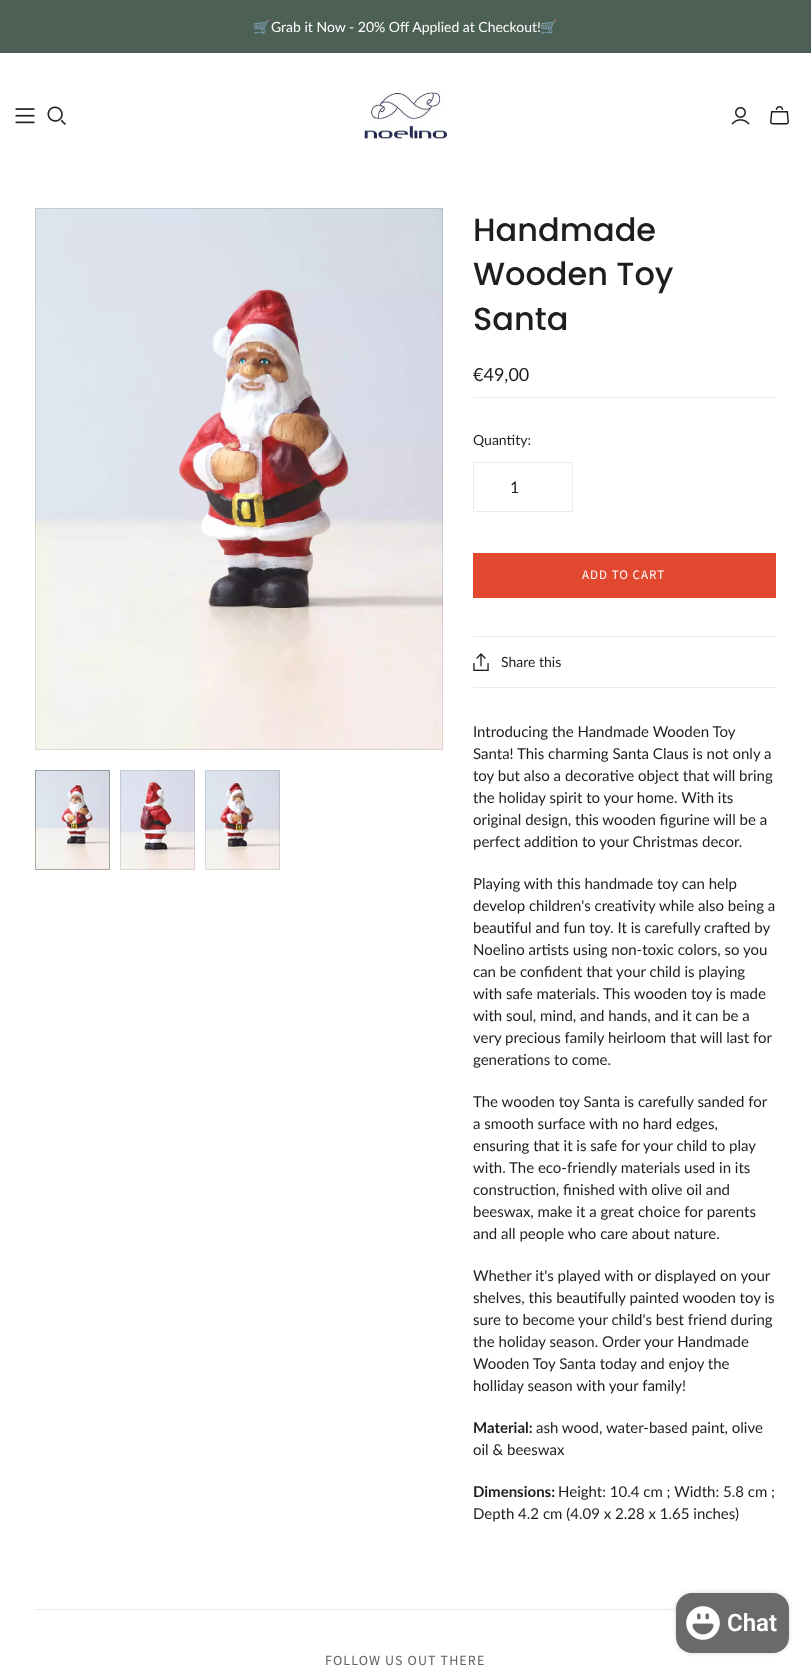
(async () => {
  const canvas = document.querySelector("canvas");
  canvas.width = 811;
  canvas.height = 1674;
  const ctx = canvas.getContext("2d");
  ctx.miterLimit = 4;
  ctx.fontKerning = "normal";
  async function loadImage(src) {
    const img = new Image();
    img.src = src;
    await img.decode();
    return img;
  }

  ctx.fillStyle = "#ffffff";
  ctx.fillRect(0, 0, 811, 1674);
  ctx.fillStyle = "#4d6055";
  ctx.fillRect(0, 0, 811, 53);
  ctx.drawImage(await loadImage("img/1.png"), 364, 91, 84, 48);
  ctx.drawImage(await loadImage("img/2.png"), 15, 108, 20, 16);
  ctx.drawImage(await loadImage("img/3.png"), 47, 106, 19, 19);
  ctx.drawImage(await loadImage("img/4.png"), 731, 107, 19, 18);
  ctx.drawImage(await loadImage("img/5.png"), 770, 106, 19, 19);
  ctx.drawImage(await loadImage("img/6.png"), 35, 208, 408, 542);
  ctx.strokeStyle = "rgba(0, 0, 0, 0.1)";
  ctx.strokeRect(35.5, 208.5, 407, 541);
  ctx.drawImage(await loadImage("img/7.png"), 35, 770, 75, 100);
  ctx.strokeStyle = "rgba(0, 0, 0, 0.3)";
  ctx.strokeRect(35.5, 770.5, 74, 99);
  ctx.drawImage(await loadImage("img/8.png"), 120, 770, 75, 100);
  ctx.strokeStyle = "rgba(0, 0, 0, 0.1)";
  ctx.strokeRect(120.5, 770.5, 74, 99);
  ctx.drawImage(await loadImage("img/9.png"), 205, 770, 75, 100);
  ctx.strokeRect(205.5, 770.5, 74, 99);
  ctx.fillStyle = "#ebebeb";
  ctx.fillRect(473, 397, 303, 1);
  ctx.fillRect(473, 636, 303, 1);
  ctx.strokeStyle = "#ebebeb";
  ctx.strokeRect(473.5, 462.5, 99, 49);
  ctx.fillStyle = "#e2472f";
  ctx.fillRect(473, 553, 303, 45);
  ctx.fillStyle = "#ebebeb";
  ctx.fillRect(473, 687, 303, 1);
  ctx.drawImage(await loadImage("img/10.png"), 473, 653, 16, 18);
  ctx.fillRect(35, 1609, 641, 1);
  ctx.fillStyle = "rgba(0, 0, 0, 0.15)";
  ctx.filter = "blur(2.5px)";
  ctx.beginPath();
  ctx.roundRect(676, 1593, 113, 60, 16);
  ctx.fill();
  ctx.filter = "none";
  ctx.fillStyle = "#6a6a6a";
  ctx.beginPath();
  ctx.roundRect(676, 1593, 113, 60, 16);
  ctx.fill();
  ctx.drawImage(await loadImage("img/11.png"), 686, 1606, 34, 34);
  ctx.font = "14px Noto Color Emoji";
  ctx.fillStyle = "#ffffff";
  ctx.fillText("🛒", 253, 32);
  ctx.font = "14px Lato";
  ctx.fillText("Grab it Now - 20% Off Applied at Checkout!", 271, 32);
  ctx.font = "14px Noto Color Emoji";
  ctx.fillText("🛒", 540, 32);
  ctx.font = "500 32px Poppins";
  ctx.fillStyle = "#1e1e1e";
  for (const [text, x, y] of [
    ["Handmade", 473, 241],
    ["Wooden Toy", 473, 285],
    ["Santa", 473, 330],
  ]) {
    ctx.fillText(text, x, y);
  }
  ctx.font = "18px Lato";
  ctx.fillText("€49,00", 473, 381);
  ctx.font = "14px Lato";
  ctx.fillText("Quantity:", 473, 445);
  ctx.font = "16px Lato";
  ctx.fillText("1", 510, 493);
  ctx.letterSpacing = "1px";
  ctx.font = "13px Source Sans Pro";
  ctx.fillStyle = "#ffffff";
  ctx.fillText("ADD TO CART", 582, 579);
  ctx.letterSpacing = "0px";
  ctx.font = "14px Lato";
  ctx.fillStyle = "#1e1e1e";
  ctx.fillText("Share this", 501, 667);
  ctx.font = "15px Lato";
  for (const [text, x, y] of [
    ["Introducing the Handmade Wooden Toy", 473, 737],
    ["Santa! This charming Santa Claus is not only a", 473, 759],
    ["toy but also a decorative object that will bring", 473, 781],
    ["the holiday spirit to your home. With its", 473, 803],
    ["original design, this wooden figurine will be a", 473, 825],
    ["perfect addition to your Christmas decor.", 473, 847],
    ["Playing with this handmade toy can help", 473, 889],
    ["develop children's creativity while also being a", 473, 911],
    ["beautiful and fun toy. It is carefully crafted by", 473, 933],
    ["Noelino artists using non-toxic colors, so you", 473, 955],
    ["can be confident that your child is playing", 473, 977],
    ["with safe materials. This wooden toy is made", 473, 999],
    ["with soul, mind, and hands, and it can be a", 473, 1021],
    ["very precious family heirloom that will last for", 473, 1043],
    ["generations to come.", 473, 1065],
    ["The wooden toy Santa is carefully sanded for", 473, 1107],
    ["a smooth surface with no hard edges,", 473, 1129],
    ["ensuring that it is safe for your child to play", 473, 1151],
    ["with. The eco-friendly materials used in its", 473, 1173],
    ["construction, finished with olive oil and", 473, 1195],
    ["beeswax, make it a great choice for parents", 473, 1217],
    ["and all people who care about nature.", 473, 1239],
    ["Whether it's played with or displayed on your", 473, 1281],
    ["shelves, this beautifully painted wooden toy is", 473, 1303],
    ["sure to become your child's best friend during", 473, 1325],
    ["the holiday season. Order your Handmade", 473, 1347],
    ["Wooden Toy Santa today and enjoy the", 473, 1369],
    ["holliday season with your family!", 473, 1391],
  ]) {
    ctx.fillText(text, x, y);
  }
  ctx.font = "bold 15px Lato";
  ctx.fillText("Material:", 473, 1433);
  ctx.font = "15px Lato";
  ctx.fillText("ash wood, water-based paint, olive", 536, 1433);
  ctx.fillText("oil & beeswax", 473, 1455);
  ctx.font = "bold 15px Lato";
  ctx.fillText("Dimensions:", 473, 1497);
  ctx.font = "15px Lato";
  ctx.fillText("Height: 10.4 cm ; Width: 5.8 cm ;", 558, 1497);
  ctx.fillText("Depth 4.2 cm (4.09 x 2.28 x 1.65 inches)", 473, 1519);
  ctx.font = "600 24px Roboto";
  ctx.fillStyle = "#ffffff";
  ctx.fillText("Chat", 727, 1631);
  ctx.letterSpacing = "1.1px";
  ctx.font = "14px Source Sans Pro";
  ctx.fillStyle = "#626262";
  ctx.fillText("FOLLOW US OUT THERE", 325, 1665);
})();
